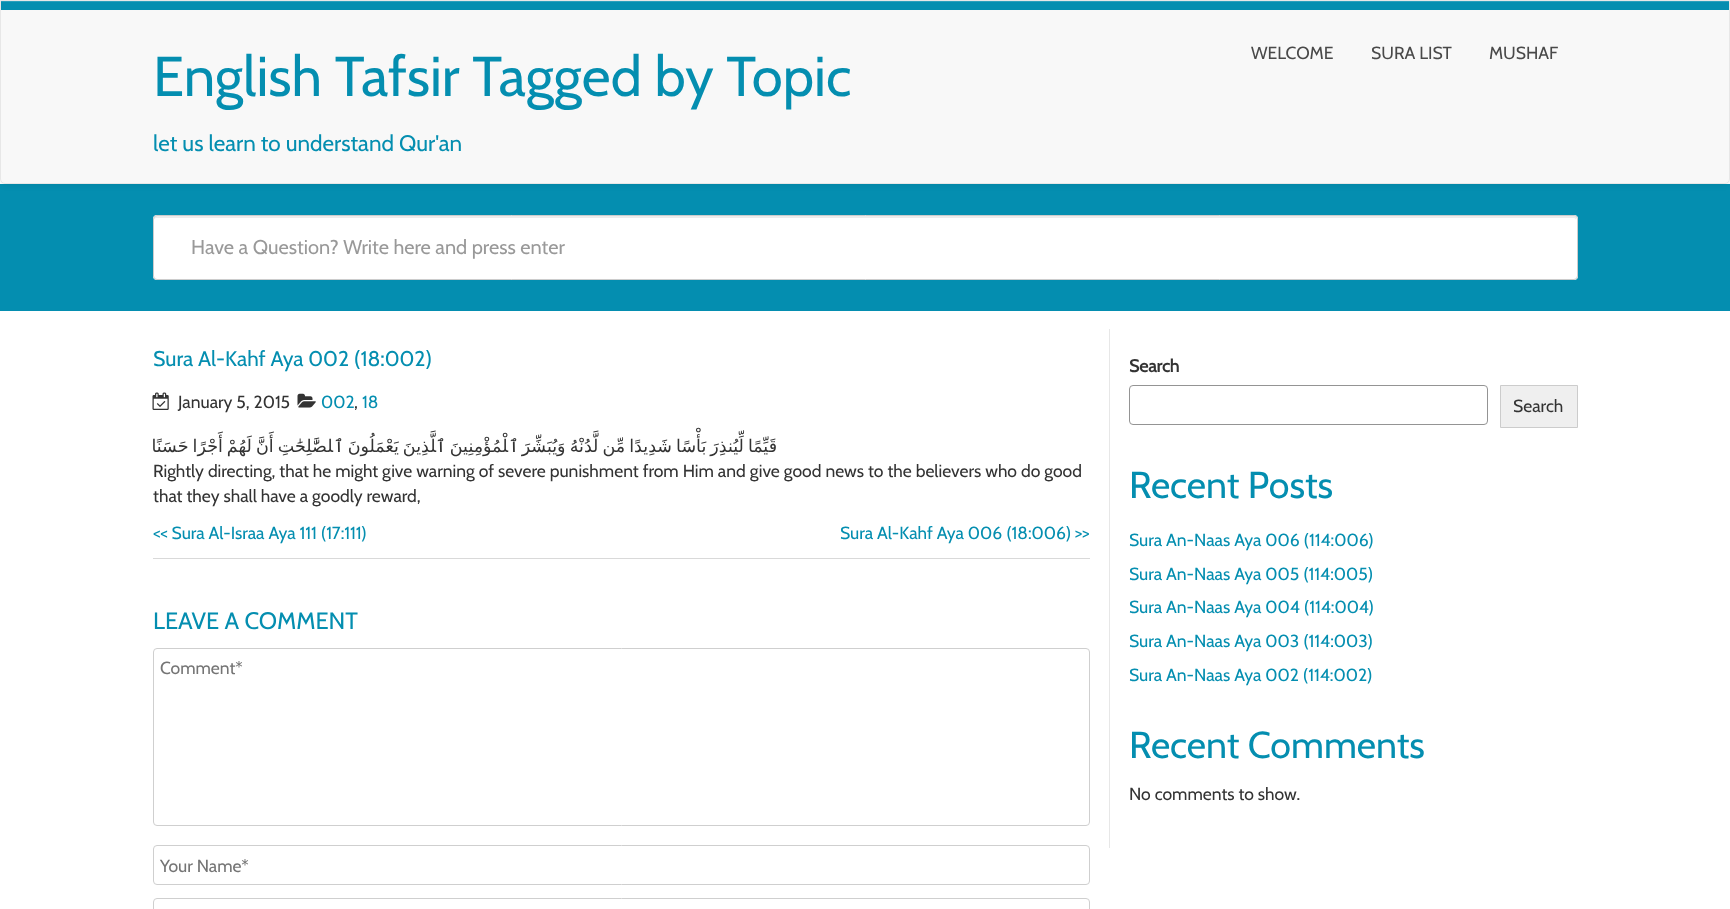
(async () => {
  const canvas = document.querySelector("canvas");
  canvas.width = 1730;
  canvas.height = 909;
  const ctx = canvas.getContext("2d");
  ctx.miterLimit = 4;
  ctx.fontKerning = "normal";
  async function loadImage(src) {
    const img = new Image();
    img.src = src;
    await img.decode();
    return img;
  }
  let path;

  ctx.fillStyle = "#ffffff";
  ctx.fillRect(0, 0, 1730, 909);
  ctx.fillStyle = "#048eb0";
  ctx.fillRect(0, 184, 1730, 127);
  ctx.fillStyle = "rgba(0, 0, 0, 0.07)";
  ctx.filter = "blur(3px)";
  ctx.beginPath();
  ctx.roundRect(0, 1, 1730, 184, 5);
  ctx.fill();
  ctx.filter = "none";
  ctx.fillStyle = "#f8f8f8";
  ctx.beginPath();
  ctx.roundRect(0, 0, 1730, 184, [0, 0, 5, 5]);
  ctx.fill();
  ctx.fillStyle = "#048eb0";
  ctx.fillRect(1, 2, 1728, 8);
  ctx.fillStyle = "#2a9fbc";
  ctx.fillRect(1, 1, 1728, 1);
  ctx.beginPath();
  ctx.roundRect(0.5, 0.5, 1729, 183, [0, 0, 4.5, 4.5]);
  ctx.strokeStyle = "#e7e7e7";
  ctx.stroke();
  ctx.fillStyle = "#ffffff";
  ctx.beginPath();
  ctx.roundRect(153, 215, 1425, 65, 4);
  ctx.fill();
  ctx.fillStyle = "#ececec";
  path = new Path2D("M156 218H1574C1575 218 1576 219 1576 220V218C1576 217 1575 216 1574 216H156C155 216 154 217 154 218V220C154 219 155 218 156 218Z");
  ctx.fill(path);
  ctx.beginPath();
  ctx.roundRect(153.5, 215.5, 1424, 64, 3.5);
  ctx.strokeStyle = "#cccccc";
  ctx.stroke();
  ctx.drawImage(await loadImage("img/1.png"), 152, 392, 17, 18);
  ctx.drawImage(await loadImage("img/2.png"), 297, 393, 19, 15);
  ctx.fillStyle = "#d9d9d9";
  ctx.fillRect(153, 558, 937, 1);
  ctx.beginPath();
  ctx.roundRect(153.5, 648.5, 936, 177, 3.5);
  ctx.strokeStyle = "#cfcfcf";
  ctx.stroke();
  ctx.beginPath();
  ctx.roundRect(153.5, 845.5, 936, 39, 3.5);
  ctx.stroke();
  ctx.beginPath();
  ctx.roundRect(153.5, 898.5, 936, 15, 3.5);
  ctx.stroke();
  ctx.fillStyle = "#e7e7e7";
  ctx.fillRect(1109, 329, 1, 519);
  ctx.beginPath();
  ctx.roundRect(1129.5, 385.5, 358, 39, 3.5);
  ctx.strokeStyle = "#949494";
  ctx.stroke();
  ctx.fillStyle = "#efefef";
  ctx.beginPath();
  ctx.rect(1500.5, 385.5, 77, 42);
  ctx.fill();
  ctx.strokeStyle = "#cccccc";
  ctx.stroke();
  ctx.font = "56.25px Cabin";
  ctx.fillStyle = "#048eb0";
  ctx.fillText("English Tafsir Tagged by Topic", 153, 96);
  ctx.font = "22.5px Cabin";
  ctx.fillText("let us learn to understand Qur'an", 153, 151);
  ctx.font = "17.5px Cabin";
  ctx.fillStyle = "#494949";
  for (const [text, x, y] of [
    ["WELCOME", 1251, 59],
    ["SURA LIST", 1371, 59],
    ["MUSHAF", 1489, 59],
  ]) {
    ctx.fillText(text, x, y);
  }
  ctx.font = "20px Cabin";
  ctx.fillStyle = "#999999";
  ctx.fillText("Have a Question? Write here and press enter", 191, 254);
  ctx.font = "21.25px Cabin";
  ctx.fillStyle = "#048eb0";
  ctx.fillText("Sura Al-Kahf Aya 002 (18:002)", 153, 366);
  ctx.font = "17.5px Cabin";
  ctx.fillStyle = "#333333";
  ctx.fillText("January 5, 2015", 178, 408);
  ctx.fillStyle = "#048eb0";
  ctx.fillText("002", 321, 408);
  ctx.fillStyle = "#333333";
  ctx.fillText(",", 354, 408);
  ctx.fillStyle = "#048eb0";
  ctx.fillText("18", 362, 408);
  ctx.wordSpacing = "-1.5px";
  ctx.direction = "rtl";
  ctx.font = "17.5px DejaVu Sans";
  ctx.fillStyle = "#333333";
  ctx.fillText("‍لصَّٰلِحَٰتِ أَنَّ لَهُمْ أَجْرًا حَسَنًا", 333, 452);
  ctx.fillText("‍لَّذِينَ يَعْمَلُونَ", 436, 452);
  ctx.wordSpacing = "0px";
  ctx.fillText("‍لْمُؤْمِنِينَ", 508, 452);
  ctx.wordSpacing = "-1.5px";
  ctx.fillText("قَيِّمًا لِّيُنذِرَ بَأْسًا شَدِيدًا مِّن لَّدُنْهُ وَيُبَشِّرَ", 777, 452);
  ctx.wordSpacing = "0px";
  ctx.font = "17.5px Cascadia Code";
  for (const [text, x, y] of [
    ["ٱ‍", 344, 452],
    ["ٱ‍", 446, 452],
    ["ٱ‍", 519, 452],
  ]) {
    ctx.fillText(text, x, y);
  }
  ctx.direction = "ltr";
  ctx.font = "17.5px Cabin";
  ctx.fillText("Rightly directing, that he might give warning of severe punishment from Him and give good news to the believers who do good", 153, 477);
  ctx.fillText("that they shall have a goodly reward,", 153, 502);
  ctx.fillStyle = "#048eb0";
  ctx.fillText("<< Sura Al-Israa Aya 111 (17:111)", 153, 539);
  ctx.fillText("Sura Al-Kahf Aya 006 (18:006) >>", 840, 539);
  ctx.font = "23.75px Cabin";
  ctx.fillText("LEAVE A COMMENT", 153, 629);
  ctx.font = "17.5px Cabin";
  ctx.fillStyle = "#757575";
  ctx.fillText("Comment*", 160, 674);
  ctx.fillText("Your Name*", 160, 872);
  ctx.font = "bold 17.5px Cabin";
  ctx.fillStyle = "#333333";
  ctx.fillText("Search", 1129, 372);
  ctx.font = "17.5px Cabin";
  ctx.fillText("Search", 1513, 412);
  ctx.font = "37.5px Cabin";
  ctx.fillStyle = "#048eb0";
  ctx.fillText("Recent Posts", 1129, 498);
  ctx.font = "17.5px Cabin";
  for (const [text, x, y] of [
    ["Sura An-Naas Aya 006 (114:006)", 1129, 546],
    ["Sura An-Naas Aya 005 (114:005)", 1129, 580],
    ["Sura An-Naas Aya 004 (114:004)", 1129, 613],
    ["Sura An-Naas Aya 003 (114:003)", 1129, 647],
    ["Sura An-Naas Aya 002 (114:002)", 1129, 681],
  ]) {
    ctx.fillText(text, x, y);
  }
  ctx.font = "37.5px Cabin";
  ctx.fillText("Recent Comments", 1129, 758);
  ctx.font = "17.5px Cabin";
  ctx.fillStyle = "#333333";
  ctx.fillText("No comments to show.", 1129, 800);
})();
